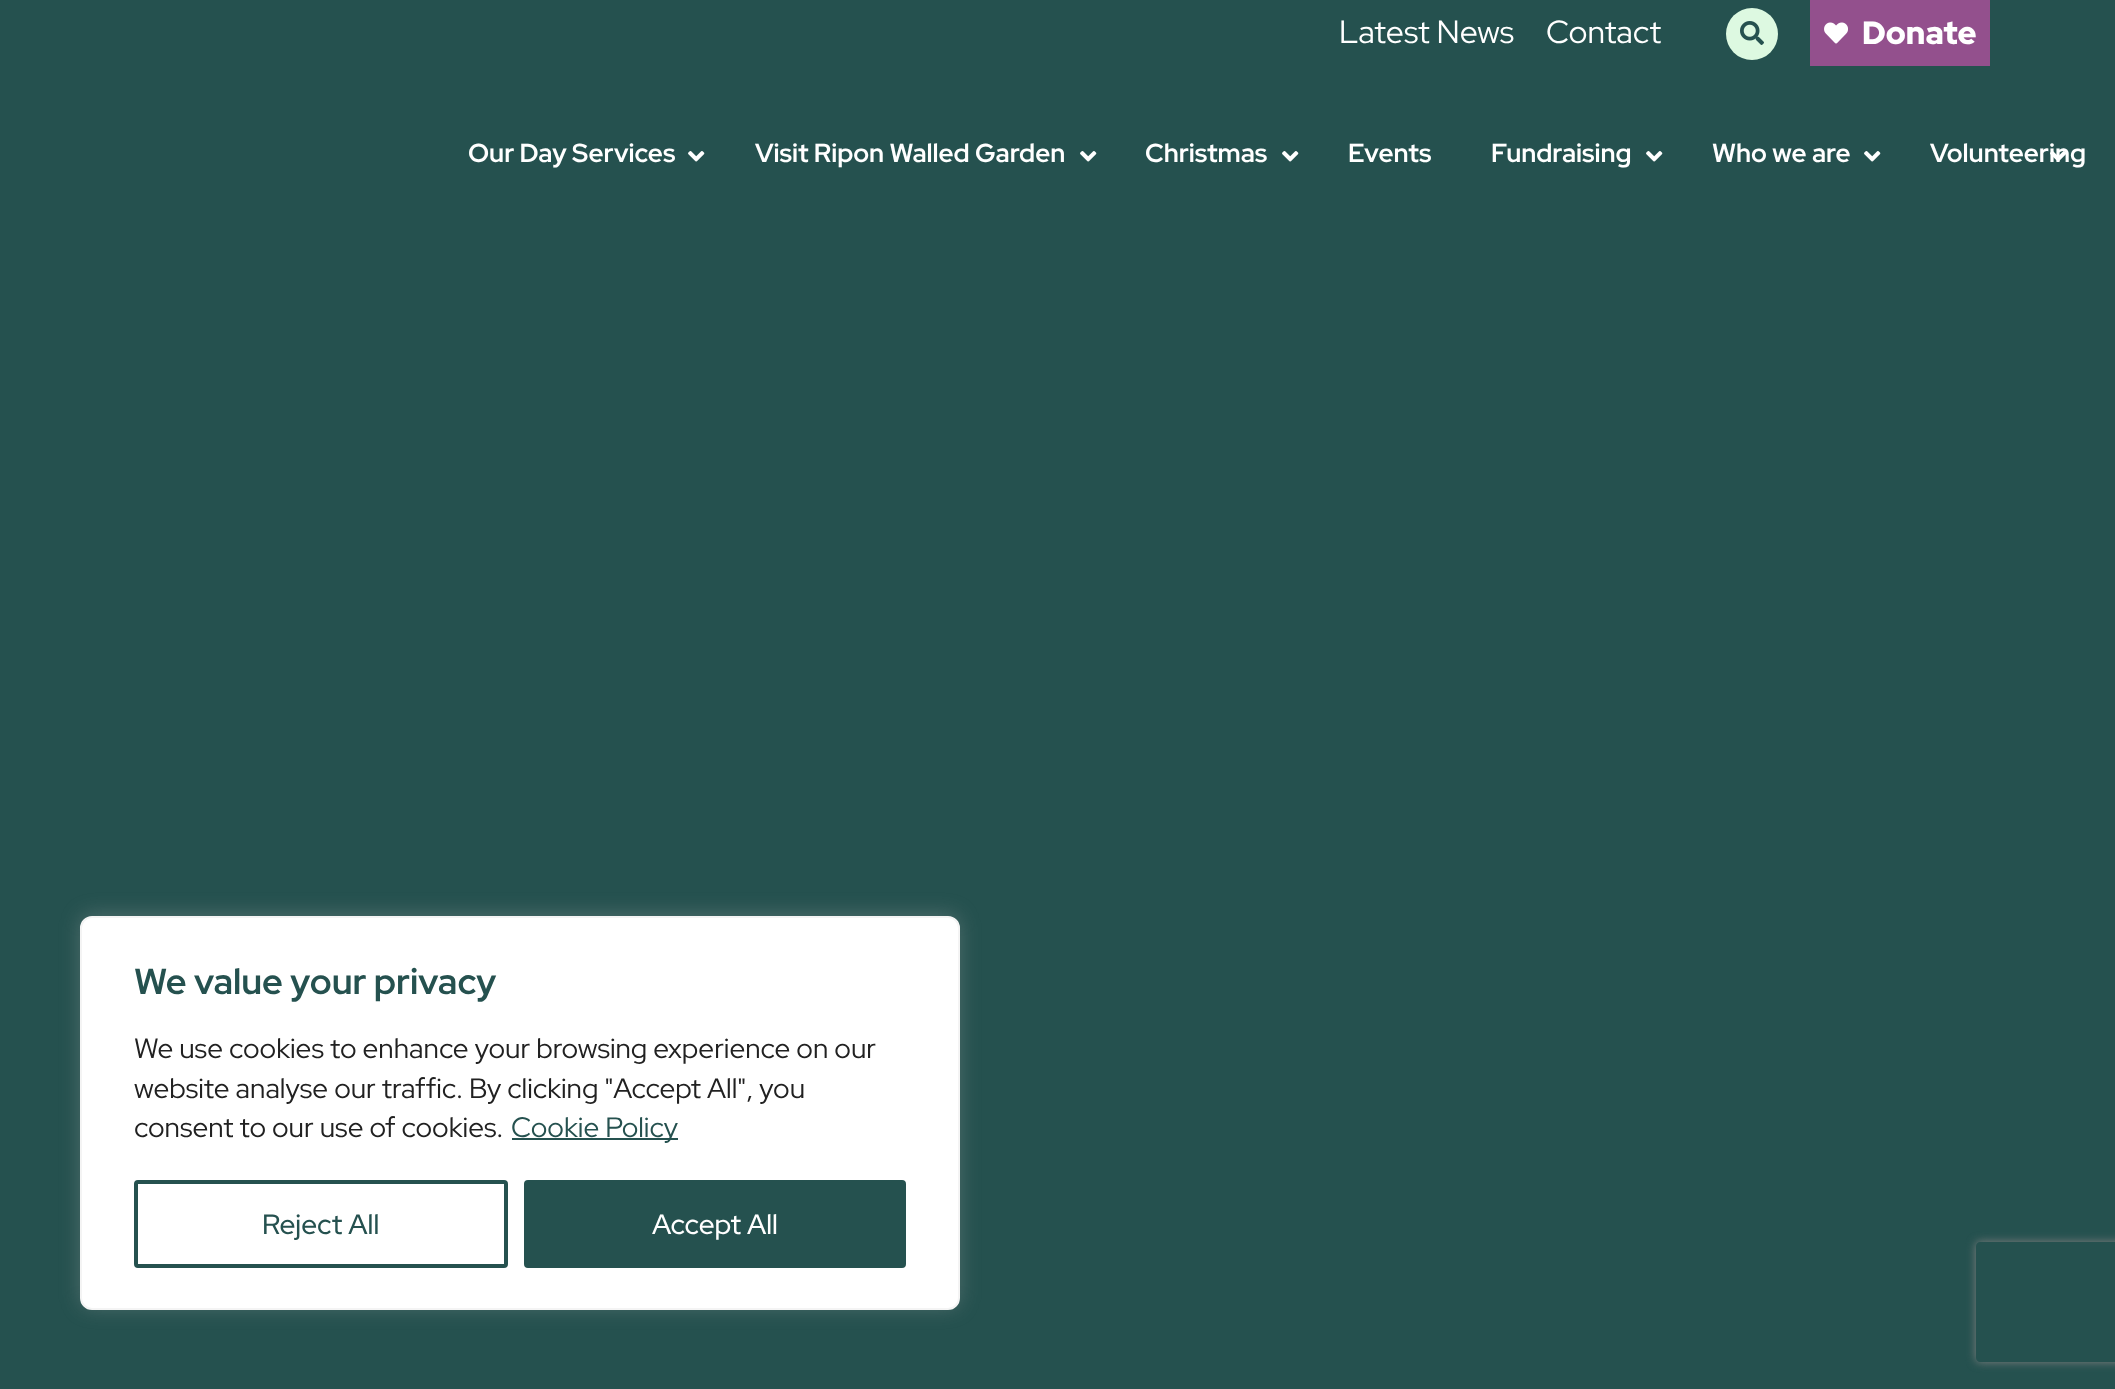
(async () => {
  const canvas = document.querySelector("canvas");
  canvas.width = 2115;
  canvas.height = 1389;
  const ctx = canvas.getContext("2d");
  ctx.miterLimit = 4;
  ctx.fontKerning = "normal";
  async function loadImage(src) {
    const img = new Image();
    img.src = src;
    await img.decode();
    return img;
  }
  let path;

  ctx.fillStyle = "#25514f";
  ctx.fillRect(0, 0, 2115, 1389);
  ctx.fillStyle = "#ddf9e1";
  ctx.beginPath();
  ctx.arc(1752, 34, 26, 0, Math.PI * 2);
  ctx.fill();
  ctx.drawImage(await loadImage("img/1.png"), 1740, 21, 24, 24);
  ctx.fillStyle = "#93508d";
  ctx.fillRect(1810, 0, 180, 66);
  ctx.drawImage(await loadImage("img/2.png"), 1824, 22, 24, 22);
  ctx.drawImage(await loadImage("img/3.png"), 688, 151, 17, 11);
  ctx.drawImage(await loadImage("img/3.png"), 1080, 151, 17, 11);
  ctx.drawImage(await loadImage("img/3.png"), 1282, 151, 17, 11);
  ctx.drawImage(await loadImage("img/3.png"), 1646, 151, 17, 11);
  ctx.drawImage(await loadImage("img/3.png"), 1864, 151, 17, 11);
  ctx.fillStyle = "rgba(172, 171, 171, 0.3)";
  ctx.filter = "blur(10px)";
  ctx.beginPath();
  ctx.roundRect(80, 914, 880, 394, 12);
  ctx.fill();
  ctx.filter = "none";
  ctx.fillStyle = "#ffffff";
  ctx.beginPath();
  ctx.roundRect(81, 917, 878, 392, 11);
  ctx.fill();
  ctx.strokeStyle = "#f4f4f4";
  ctx.lineWidth = 2;
  ctx.stroke();
  ctx.fillStyle = "#25514f";
  ctx.fillRect(512, 1138, 166, 2);
  ctx.beginPath();
  ctx.roundRect(136, 1182, 370, 84, 2);
  ctx.strokeStyle = "#25514f";
  ctx.lineWidth = 4;
  ctx.stroke();
  ctx.beginPath();
  ctx.roundRect(526, 1182, 378, 84, 2);
  ctx.fill();
  ctx.stroke();
  ctx.save();
  path = new Path2D("M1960 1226H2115V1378H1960ZM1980 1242H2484C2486 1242 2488 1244 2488 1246V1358C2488 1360 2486 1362 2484 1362H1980C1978 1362 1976 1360 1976 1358V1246C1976 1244 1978 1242 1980 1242Z");
  ctx.clip(path, "evenodd");
  ctx.fillStyle = "#808080";
  ctx.filter = "blur(5px)";
  ctx.beginPath();
  ctx.roundRect(1976, 1242, 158, 120, 4);
  ctx.fill();
  ctx.filter = "none";
  ctx.restore();
  ctx.font = "32px Red Hat Display";
  ctx.fillStyle = "#ffffff";
  ctx.fillText("Latest News", 1339, 43);
  ctx.fillText("Contact", 1546, 43);
  ctx.font = "900 32px Red Hat Display";
  ctx.fillText("Donate", 1862, 44);
  ctx.font = "bold 26px Red Hat Display";
  for (const [text, x, y] of [
    ["Our Day Services", 468, 162],
    ["Visit Ripon Walled Garden", 755, 162],
    ["Christmas", 1145, 162],
    ["Events", 1348, 162],
    ["Fundraising", 1491, 162],
    ["Who we are", 1712, 162],
    ["Volunteering", 1930, 162],
  ]) {
    ctx.fillText(text, x, y);
  }
  ctx.drawImage(await loadImage("img/4.png"), 2050, 151, 16, 10);
  ctx.font = "bold 36px Red Hat Display";
  ctx.fillStyle = "#25514f";
  ctx.fillText("We value your privacy", 134, 994);
  ctx.font = "28px Red Hat Display";
  ctx.fillStyle = "#212121";
  for (const [text, x, y] of [
    ["We use cookies to enhance your browsing experience on our", 134, 1058],
    ["website analyse our traffic. By clicking \"Accept All\", you", 134, 1098],
    ["consent to our use of cookies.", 134, 1137],
  ]) {
    ctx.fillText(text, x, y);
  }
  ctx.fillStyle = "#25514f";
  ctx.fillText("Cookie Policy", 511, 1137);
  ctx.font = "500 28px Red Hat Display";
  ctx.fillText("Reject All", 262, 1234);
  ctx.fillStyle = "#ffffff";
  ctx.fillText("Accept All", 652, 1234);
})();
